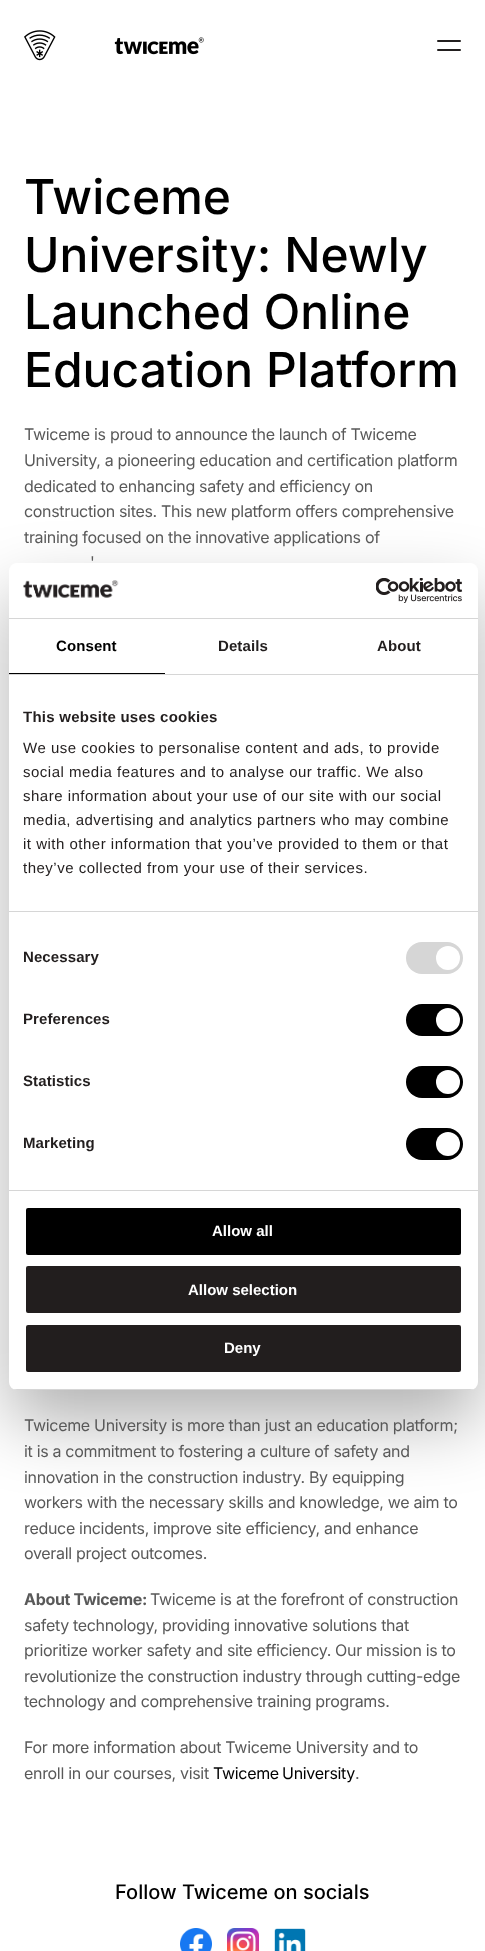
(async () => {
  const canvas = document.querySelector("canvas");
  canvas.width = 485;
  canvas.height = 1951;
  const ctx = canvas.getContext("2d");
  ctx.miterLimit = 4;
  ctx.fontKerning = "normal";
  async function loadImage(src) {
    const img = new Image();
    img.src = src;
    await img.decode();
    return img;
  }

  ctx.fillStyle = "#ffffff";
  ctx.fillRect(0, 0, 485, 1951);
  ctx.drawImage(await loadImage("img/1.png"), 24, 30, 180, 31);
  ctx.fillStyle = "#221f1f";
  ctx.beginPath();
  ctx.roundRect(437, 40, 24, 2, 1);
  ctx.fill();
  ctx.beginPath();
  ctx.roundRect(437, 49, 24, 2, 1);
  ctx.fill();
  ctx.drawImage(await loadImage("img/2.png"), 180, 1928, 32, 23);
  ctx.drawImage(await loadImage("img/3.png"), 227, 1928, 32, 23);
  ctx.drawImage(await loadImage("img/4.png"), 274, 1928, 32, 23);
  ctx.fillStyle = "rgba(0, 0, 0, 0.3)";
  ctx.filter = "blur(34px)";
  ctx.beginPath();
  ctx.roundRect(9, 595, 469, 827, 8);
  ctx.fill();
  ctx.filter = "none";
  ctx.fillStyle = "#ffffff";
  ctx.beginPath();
  ctx.roundRect(9, 563, 469, 827, 8);
  ctx.fill();
  ctx.fillStyle = "#d6d6d6";
  ctx.fillRect(9, 618, 469, 1);
  ctx.drawImage(await loadImage("img/5.png"), 23, 580, 96, 18);
  ctx.drawImage(await loadImage("img/6.png"), 376, 578, 87, 25);
  for (const [x, y, w, h, color] of [
    [9, 674, 469, 1, "#d6d6d6"],
    [9, 673, 156, 1, "#000000"],
    [9, 911, 469, 1, "#d6d6d6"],
    [9, 1190, 469, 1, "#d6d6d6"],
  ]) {
    ctx.fillStyle = color;
    ctx.fillRect(x, y, w, h);
  }
  ctx.beginPath();
  ctx.roundRect(406, 942, 57, 32, 16);
  ctx.fill();
  ctx.fillStyle = "#ffffff";
  ctx.beginPath();
  ctx.arc(448, 958, 12, 0, Math.PI * 2);
  ctx.fill();
  ctx.fillStyle = "#000000";
  ctx.beginPath();
  ctx.roundRect(406, 1004, 57, 32, 16);
  ctx.fill();
  ctx.fillStyle = "#ffffff";
  ctx.beginPath();
  ctx.arc(448, 1020, 12, 0, Math.PI * 2);
  ctx.fill();
  ctx.fillStyle = "#000000";
  ctx.beginPath();
  ctx.roundRect(406, 1066, 57, 32, 16);
  ctx.fill();
  ctx.fillStyle = "#ffffff";
  ctx.beginPath();
  ctx.arc(448, 1082, 12, 0, Math.PI * 2);
  ctx.fill();
  ctx.fillStyle = "#000000";
  ctx.beginPath();
  ctx.roundRect(406, 1128, 57, 32, 16);
  ctx.fill();
  ctx.fillStyle = "#ffffff";
  ctx.beginPath();
  ctx.arc(448, 1144, 12, 0, Math.PI * 2);
  ctx.fill();
  ctx.save();
  ctx.beginPath();
  ctx.roundRect(9, 563, 469, 827, 8);
  ctx.clip();
  ctx.fillStyle = "#d6d6d6";
  ctx.fillRect(9, 1389, 469, 1);
  ctx.restore();
  ctx.fillStyle = "#000000";
  ctx.beginPath();
  ctx.roundRect(25, 1207, 437, 49, 3);
  ctx.fill();
  ctx.strokeStyle = "#ffffff";
  ctx.lineWidth = 2;
  ctx.stroke();
  ctx.fillStyle = "#221e1e";
  ctx.beginPath();
  ctx.roundRect(25, 1265, 437, 49, 3);
  ctx.fill();
  ctx.stroke();
  ctx.beginPath();
  ctx.roundRect(25, 1324, 437, 49, 3);
  ctx.fill();
  ctx.stroke();
  ctx.font = "500 48px Inter";
  ctx.fillStyle = "#000000";
  for (const [text, x, y] of [
    ["Twiceme", 24, 214],
    ["University: Newly", 24, 272],
    ["Launched Online", 24, 329],
    ["Education Platform", 24, 387],
  ]) {
    ctx.fillText(text, x, y);
  }
  ctx.letterSpacing = "-0.32px";
  ctx.font = "16px Inter";
  ctx.fillStyle = "#595959";
  for (const [text, x, y] of [
    ["Twiceme is proud to announce the launch of Twiceme", 24, 440],
    ["University, a pioneering education and certification platform", 24, 466],
    ["dedicated to enhancing safety and efficiency on", 24, 492],
    ["construction sites. This new platform offers comprehensive", 24, 517],
    ["training focused on the innovative applications of", 24, 543],
    ["'", 90, 568],
    ["Twiceme University is more than just an education platform;", 24, 1431],
    ["it is a commitment to fostering a culture of safety and", 24, 1457],
    ["innovation in the construction industry. By equipping", 24, 1483],
    ["workers with the necessary skills and knowledge, we aim to", 24, 1508],
    ["reduce incidents, improve site efficiency, and enhance", 24, 1534],
    ["overall project outcomes.", 24, 1559],
  ]) {
    ctx.fillText(text, x, y);
  }
  ctx.font = "bold 16px Inter";
  ctx.fillText("About Twiceme:", 24, 1605);
  ctx.font = "16px Inter";
  for (const [text, x, y] of [
    ["Twiceme is at the forefront of construction", 150, 1605],
    ["safety technology, providing innovative solutions that", 24, 1631],
    ["prioritize worker safety and site efficiency. Our mission is to", 24, 1656],
    ["revolutionize the construction industry through cutting-edge", 24, 1682],
    ["technology and comprehensive training programs.", 24, 1707],
    ["For more information about Twiceme University and to", 24, 1753],
    ["enroll in our courses, visit", 24, 1779],
  ]) {
    ctx.fillText(text, x, y);
  }
  ctx.wordSpacing = "-1px";
  ctx.fillStyle = "#000000";
  ctx.fillText("Twiceme University", 213, 1779);
  ctx.wordSpacing = "0px";
  ctx.fillStyle = "#595959";
  ctx.fillText(".", 355, 1779);
  ctx.letterSpacing = "0px";
  ctx.font = "500 20px Inter";
  ctx.fillStyle = "#000000";
  ctx.fillText("Follow Twiceme on socials", 115, 1899);
  ctx.letterSpacing = "0.1px";
  ctx.font = "bold 15px Liberation Sans";
  ctx.fillText("Consent", 56, 651);
  ctx.fillStyle = "#221e1e";
  ctx.fillText("Details", 218, 651);
  ctx.fillText("About", 377, 651);
  ctx.letterSpacing = "0.25px";
  ctx.fillText("This website uses cookies", 23, 722);
  ctx.letterSpacing = "0.5px";
  ctx.font = "15px Liberation Sans";
  for (const [text, x, y] of [
    ["We use cookies to personalise content and ads, to provide", 23, 753],
    ["social media features and to analyse our traffic. We also", 23, 777],
    ["share information about your use of our site with our social", 23, 801],
    ["media, advertising and analytics partners who may combine", 23, 825],
    ["it with other information that you’ve provided to them or that", 23, 849],
    ["they’ve collected from your use of their services.", 23, 873],
  ]) {
    ctx.fillText(text, x, y);
  }
  ctx.letterSpacing = "0.1px";
  ctx.font = "bold 15px Liberation Sans";
  for (const [text, x, y] of [
    ["Necessary", 23, 962],
    ["Preferences", 23, 1024],
    ["Statistics", 23, 1086],
    ["Marketing", 23, 1148],
  ]) {
    ctx.fillText(text, x, y);
  }
  ctx.letterSpacing = "0px";
  ctx.fillStyle = "#ffffff";
  for (const [text, x, y] of [
    ["Allow all", 212, 1236],
    ["Allow selection", 188, 1295],
    ["Deny", 224, 1353],
  ]) {
    ctx.fillText(text, x, y);
  }
})();
